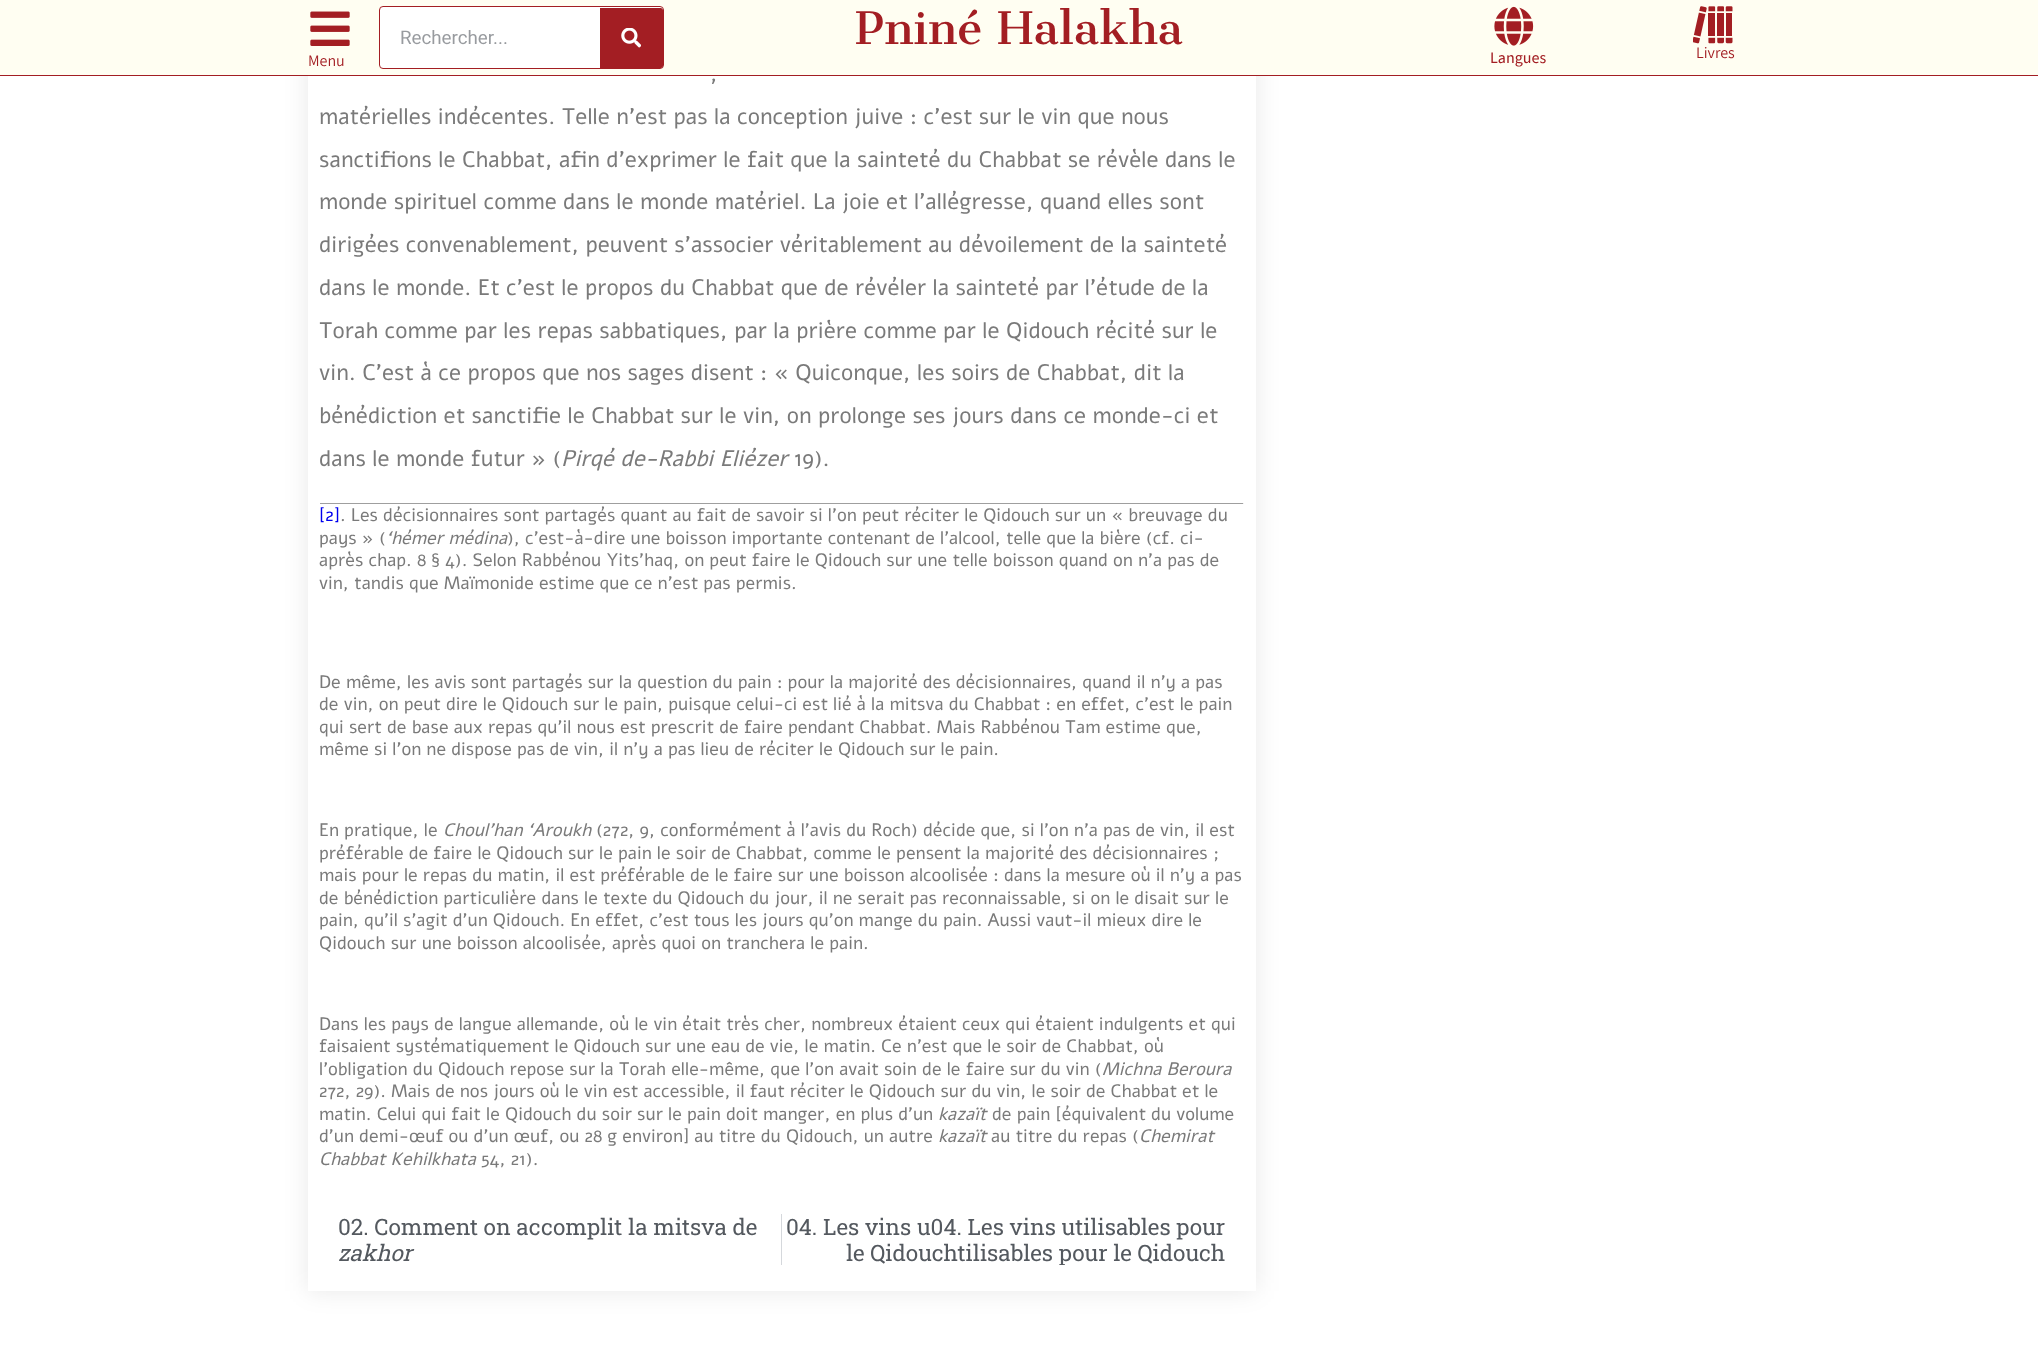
(async () => {
  const canvas = document.querySelector("canvas");
  canvas.width = 2038;
  canvas.height = 1347;
  const ctx = canvas.getContext("2d");
  ctx.miterLimit = 4;
  ctx.fontKerning = "normal";
  async function loadImage(src) {
    const img = new Image();
    img.src = src;
    await img.decode();
    return img;
  }
  let path;

  ctx.fillStyle = "#ffffff";
  ctx.fillRect(0, 0, 2038, 1347);
  ctx.save();
  path = new Path2D("M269 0H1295V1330H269ZM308-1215H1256V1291H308Z");
  ctx.clip(path, "evenodd");
  ctx.fillStyle = "rgba(0, 0, 0, 0.09)";
  ctx.filter = "blur(12.5px)";
  ctx.beginPath();
  ctx.rect(308, -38, 948, 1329);
  ctx.fill();
  ctx.filter = "none";
  ctx.restore();
  ctx.fillStyle = "#fffef2";
  ctx.fillRect(0, 0, 2038, 75);
  ctx.fillStyle = "#a31e23";
  ctx.fillRect(0, 75, 2038, 1);
  ctx.fillStyle = "#ffffff";
  ctx.beginPath();
  ctx.roundRect(379.5, 6.5, 284, 62, 3.5);
  ctx.fill();
  ctx.strokeStyle = "#a31e23";
  ctx.stroke();
  ctx.fillStyle = "#a31e23";
  ctx.beginPath();
  ctx.roundRect(600, 8, 63, 60, [0, 2.5, 2.5, 0]);
  ctx.fill();
  ctx.drawImage(await loadImage("img/1.png"), 621, 28, 20, 20);
  ctx.drawImage(await loadImage("img/2.png"), 310, 11, 40, 35);
  ctx.drawImage(await loadImage("img/3.png"), 1494, 6, 40, 40);
  ctx.drawImage(await loadImage("img/4.png"), 1693, 6, 40, 38);
  for (const [x, y, w, h, color] of [
    [320, 503, 924, 1, "#9f9f9f"],
    [1243, 503, 1, 1, "#eeeeee"],
    [781, 1214, 1, 51, "#d5d8dc"],
  ]) {
    ctx.fillStyle = color;
    ctx.fillRect(x, y, w, h);
  }
  ctx.font = "18.75px Roboto";
  ctx.fillStyle = "#989b9f";
  ctx.fillText("Rechercher...", 400, 44);
  ctx.font = "43.75px Cantata One";
  ctx.fillStyle = "#a31e23";
  ctx.fillText("Pniné Halakha", 855, 44);
  ctx.font = "16px Assistant";
  ctx.fillText("Menu", 308, 66);
  ctx.font = "500 16px Assistant";
  ctx.fillText("Langues", 1490, 63);
  ctx.font = "16px Assistant";
  ctx.fillText("Livres", 1696, 58);
  ctx.font = "22.5px Alef";
  ctx.fillStyle = "#7a7a7a";
  for (const [text, x, y] of [
    [",", 710, 81],
    ["matérielles indécentes. Telle n’est pas la conception juive : c’est sur le vin que nous", 319, 124],
    ["sanctifions le Chabbat, afin d’exprimer le fait que la sainteté du Chabbat se révèle dans le", 319, 167],
    ["monde spirituel comme dans le monde matériel. La joie et l’allégresse, quand elles sont", 319, 209],
    ["dirigées convenablement, peuvent s’associer véritablement au dévoilement de la sainteté", 319, 252],
    ["dans le monde. Et c’est le propos du Chabbat que de révéler la sainteté par l’étude de la", 319, 295],
    ["Torah comme par les repas sabbatiques, par la prière comme par le Qidouch récité sur le", 319, 338],
    ["vin. C’est à ce propos que nos sages disent : « Quiconque, les soirs de Chabbat, dit la", 319, 380],
    ["bénédiction et sanctifie le Chabbat sur le vin, on prolonge ses jours dans ce monde-ci et", 319, 423],
    ["dans le monde futur » (", 319, 466],
  ]) {
    ctx.fillText(text, x, y);
  }
  ctx.font = "italic 22.5px Alef";
  ctx.fillText("Pirqé de-Rabbi Eliézer", 561, 466);
  ctx.font = "22.5px Alef";
  ctx.fillText("19).", 794, 466);
  ctx.font = "18px Alef";
  ctx.fillStyle = "#0000ee";
  ctx.fillText("[2]", 319, 521);
  ctx.fillStyle = "#7a7a7a";
  ctx.fillText(". Les décisionnaires sont partagés quant au fait de savoir si l’on peut réciter le Qidouch sur un « breuvage du", 340, 521);
  ctx.fillText("pays » (", 319, 544);
  ctx.font = "italic 18px Alef";
  ctx.fillText("‘hémer médina", 386, 544);
  ctx.font = "18px Alef";
  for (const [text, x, y] of [
    ["), c’est-à-dire une boisson importante contenant de l’alcool, telle que la bière (cf. ci-", 507, 544],
    ["après chap. 8 § 4). Selon Rabbénou Yits’haq, on peut faire le Qidouch sur une telle boisson quand on n’a pas de", 319, 566],
    ["vin, tandis que Maïmonide estime que ce n’est pas permis.", 319, 589],
    ["De même, les avis sont partagés sur la question du pain : pour la majorité des décisionnaires, quand il n’y a pas", 319, 688],
    ["de vin, on peut dire le Qidouch sur le pain, puisque celui-ci est lié à la mitsva du Chabbat : en effet, c’est le pain", 319, 710],
    ["qui sert de base aux repas qu’il nous est prescrit de faire pendant Chabbat. Mais Rabbénou Tam estime que,", 319, 733],
    ["même si l’on ne dispose pas de vin, il n’y a pas lieu de réciter le Qidouch sur le pain.", 319, 755],
    ["En pratique, le", 319, 836],
  ]) {
    ctx.fillText(text, x, y);
  }
  ctx.font = "italic 18px Alef";
  ctx.fillText("Choul’han ‘Aroukh", 443, 836);
  ctx.font = "18px Alef";
  for (const [text, x, y] of [
    ["(272, 9, conformément à l’avis du Roch) décide que, si l’on n’a pas de vin, il est", 596, 836],
    ["préférable de faire le Qidouch sur le pain le soir de Chabbat, comme le pensent la majorité des décisionnaires ;", 319, 859],
    ["mais pour le repas du matin, il est préférable de le faire sur une boisson alcoolisée : dans la mesure où il n’y a pas", 319, 881],
    ["de bénédiction particulière dans le texte du Qidouch du jour, il ne serait pas reconnaissable, si on le disait sur le", 319, 904],
    ["pain, qu’il s’agit d’un Qidouch. En effet, c’est tous les jours qu’on mange du pain. Aussi vaut-il mieux dire le", 319, 926],
    ["Qidouch sur une boisson alcoolisée, après quoi on tranchera le pain.", 319, 949],
    ["Dans les pays de langue allemande, où le vin était très cher, nombreux étaient ceux qui étaient indulgents et qui", 319, 1030],
    ["faisaient systématiquement le Qidouch sur une eau de vie, le matin. Ce n’est que le soir de Chabbat, où", 319, 1052],
    ["l’obligation du Qidouch repose sur la Torah elle-même, que l’on avait soin de le faire sur du vin (", 319, 1075],
  ]) {
    ctx.fillText(text, x, y);
  }
  ctx.font = "italic 18px Alef";
  ctx.fillText("Michna Beroura", 1102, 1075);
  ctx.font = "18px Alef";
  ctx.fillText("272, 29). Mais de nos jours où le vin est accessible, il faut réciter le Qidouch sur du vin, le soir de Chabbat et le", 319, 1097);
  ctx.fillText("matin. Celui qui fait le Qidouch du soir sur le pain doit manger, en plus d’un", 319, 1120);
  ctx.font = "italic 18px Alef";
  ctx.fillText("kazaït", 938, 1120);
  ctx.font = "18px Alef";
  ctx.fillText("de pain [équivalent du volume", 992, 1120);
  ctx.fillText("d’un demi-œuf ou d’un œuf, ou 28 g environ] au titre du Qidouch, un autre", 319, 1142);
  ctx.font = "italic 18px Alef";
  ctx.fillText("kazaït", 938, 1142);
  ctx.font = "18px Alef";
  ctx.fillText("au titre du repas (", 991, 1142);
  ctx.font = "italic 18px Alef";
  ctx.fillText("Chemirat", 1139, 1142);
  ctx.fillText("Chabbat Kehilkhata", 319, 1165);
  ctx.font = "18px Alef";
  ctx.fillText("54, 21).", 481, 1165);
  ctx.font = "22.5px Roboto Slab";
  ctx.fillStyle = "#54595f";
  ctx.fillText("02. Comment on accomplit la mitsva de", 338, 1235);
  ctx.font = "italic 22.5px Roboto Slab";
  ctx.fillText("zakhor", 338, 1261);
  ctx.font = "22.5px Roboto Slab";
  ctx.fillText("04. Les vins u04. Les vins utilisables pour", 786, 1235);
  ctx.save();
  ctx.beginPath();
  ctx.rect(783, 1214, 442, 51);
  ctx.clip();
  ctx.fillText("le Qidouchtilisables pour le Qidouch", 846, 1261);
  ctx.restore();
})();
